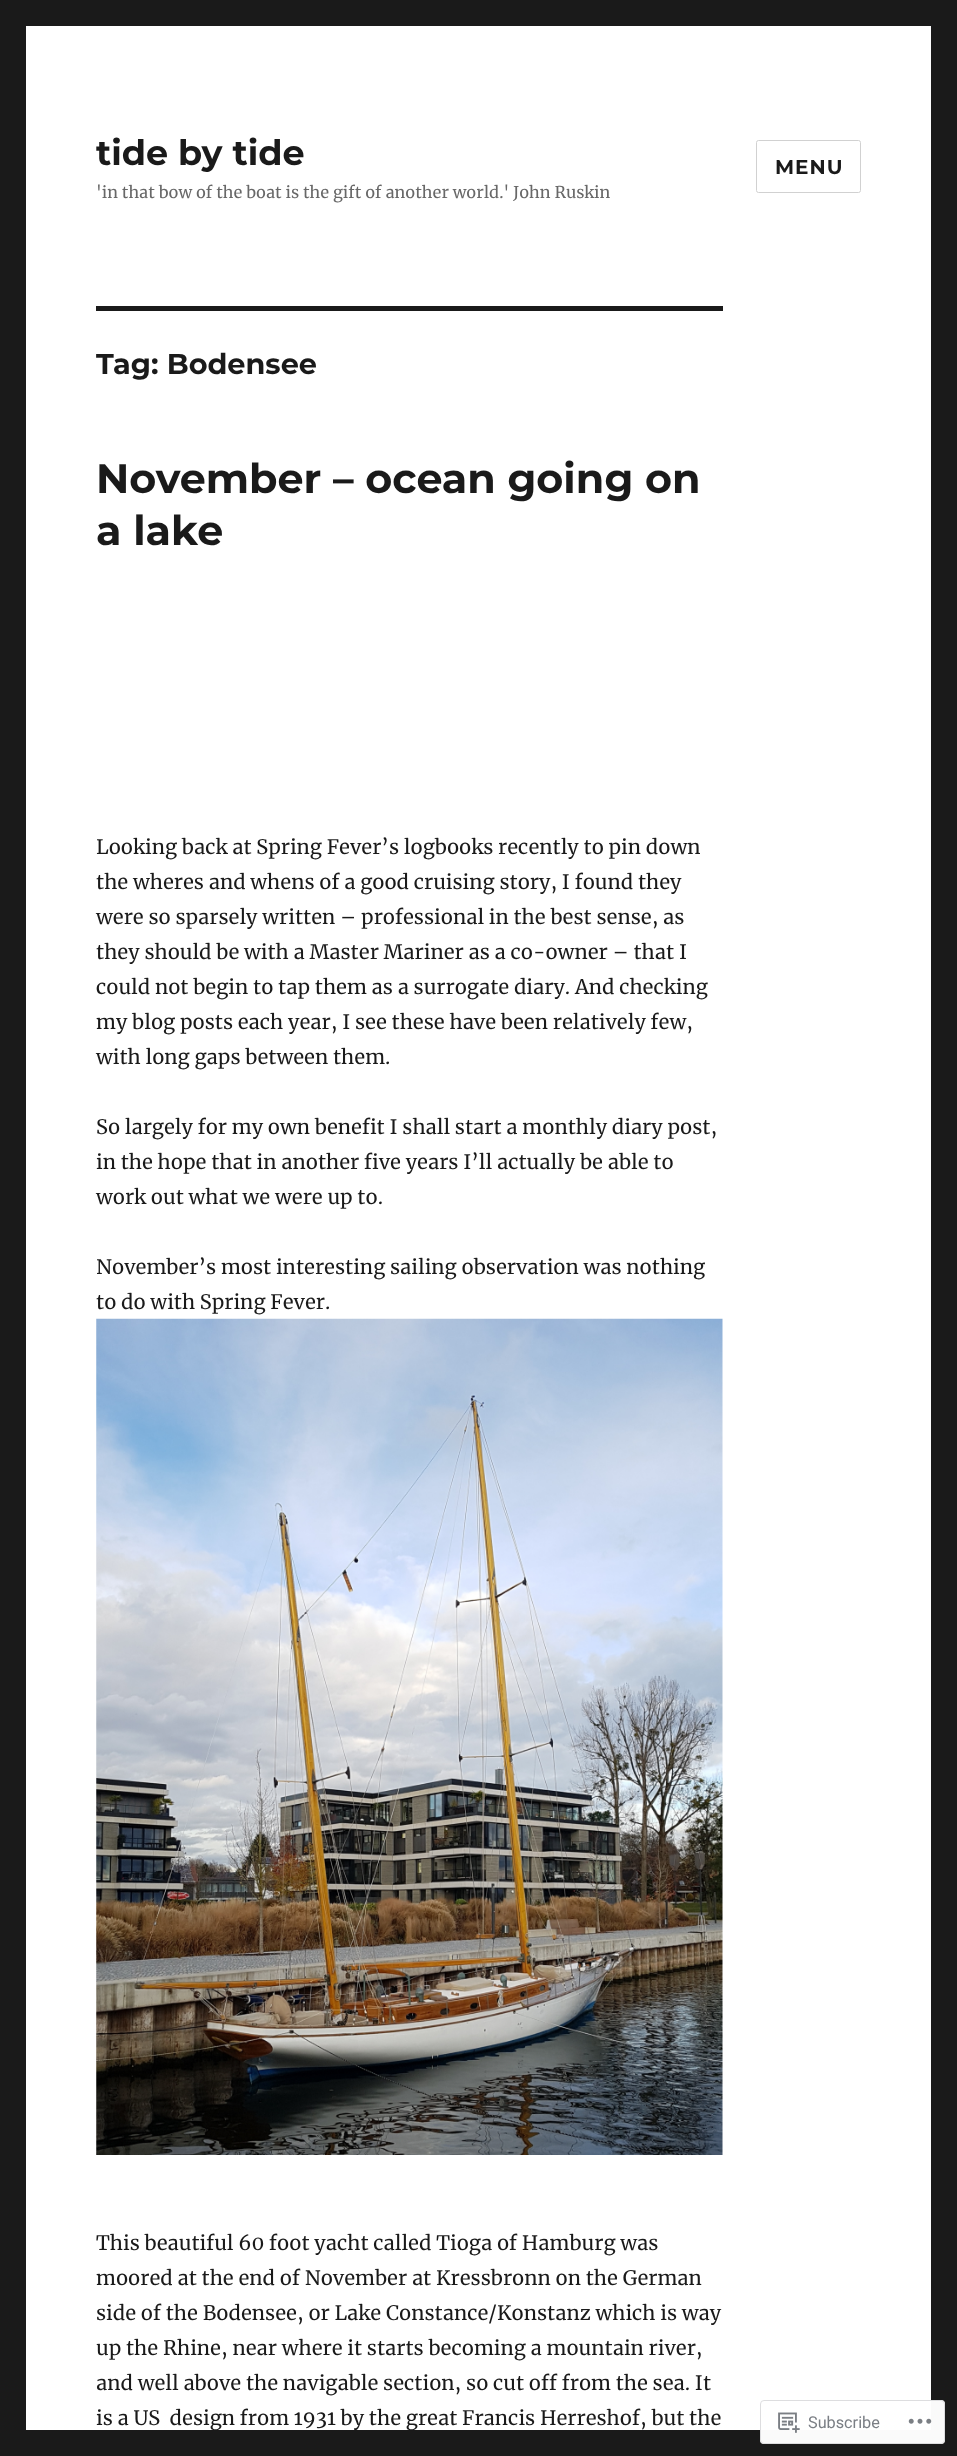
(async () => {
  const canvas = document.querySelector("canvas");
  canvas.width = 957;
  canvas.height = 2456;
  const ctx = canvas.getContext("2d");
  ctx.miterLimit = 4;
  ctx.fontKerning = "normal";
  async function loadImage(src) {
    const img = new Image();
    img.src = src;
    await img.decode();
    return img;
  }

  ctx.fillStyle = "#1a1a1a";
  ctx.fillRect(0, 0, 957, 2456);
  ctx.fillStyle = "#ffffff";
  ctx.fillRect(26, 26, 905, 2404);
  ctx.beginPath();
  ctx.roundRect(756.5, 140.5, 104, 52, 2);
  ctx.strokeStyle = "#d1d1d1";
  ctx.stroke();
  ctx.fillStyle = "#1a1a1a";
  ctx.fillRect(96, 306, 627, 5);
  ctx.drawImage(await loadImage("img/1.png"), 96, 1318, 627, 837);
  ctx.fillStyle = "rgba(255, 255, 255, 0.98)";
  ctx.beginPath();
  ctx.roundRect(760, 2400, 185, 44, 4);
  ctx.fill();
  ctx.beginPath();
  ctx.roundRect(760.5, 2400.5, 184, 43, 3.5);
  ctx.strokeStyle = "rgba(220, 220, 222, 0.98)";
  ctx.stroke();
  ctx.drawImage(await loadImage("img/2.png"), 778, 2412, 22, 21);
  ctx.drawImage(await loadImage("img/3.png"), 908, 2418, 24, 6);
  ctx.font = "100 35px Montserrat";
  ctx.fillStyle = "#1a1a1a";
  ctx.fillText("tide by tide", 96, 165);
  ctx.font = "16.25px Merriweather";
  ctx.fillStyle = "#686868";
  ctx.fillText("'in that bow of the boat is the gift of another world.' John Ruskin", 96, 198);
  ctx.letterSpacing = "1px";
  ctx.font = "100 20px Montserrat";
  ctx.fillStyle = "#1a1a1a";
  ctx.fillText("MENU", 775, 174);
  ctx.letterSpacing = "0px";
  ctx.font = "100 28.75px Montserrat";
  ctx.fillText("Tag: Bodensee", 96, 374);
  ctx.font = "100 41.25px Montserrat";
  ctx.fillText("November – ocean going on", 96, 493);
  ctx.fillText("a lake", 96, 545);
  ctx.font = "20px Merriweather";
  for (const [text, x, y] of [
    ["Looking back at Spring Fever’s logbooks recently to pin down", 96, 854],
    ["the wheres and whens of a good cruising story, I found they", 96, 889],
    ["were so sparsely written – professional in the best sense, as", 96, 924],
    ["they should be with a Master Mariner as a co-owner – that I", 96, 959],
    ["could not begin to tap them as a surrogate diary. And checking", 96, 994],
    ["my blog posts each year, I see these have been relatively few,", 96, 1029],
    ["with long gaps between them.", 96, 1064],
    ["So largely for my own benefit I shall start a monthly diary post,", 96, 1134],
    ["in the hope that in another five years I’ll actually be able to", 96, 1169],
    ["work out what we were up to.", 96, 1204],
    ["November’s most interesting sailing observation was nothing", 96, 1274],
    ["to do with Spring Fever.", 96, 1309],
    ["This beautiful 60 foot yacht called Tioga of Hamburg was", 96, 2250],
    ["moored at the end of November at Kressbronn on the German", 96, 2285],
    ["side of the Bodensee, or Lake Constance/Konstanz which is way", 96, 2320],
    ["up the Rhine, near where it starts becoming a mountain river,", 96, 2355],
    ["and well above the navigable section, so cut off from the sea. It", 96, 2390],
    ["is a US  design from 1931 by the great Francis Herreshof, but the", 96, 2425],
  ]) {
    ctx.fillText(text, x, y);
  }
  ctx.font = "16.25px Roboto";
  ctx.fillStyle = "#7b7f85";
  ctx.fillText("Subscribe", 808, 2428);
})();
